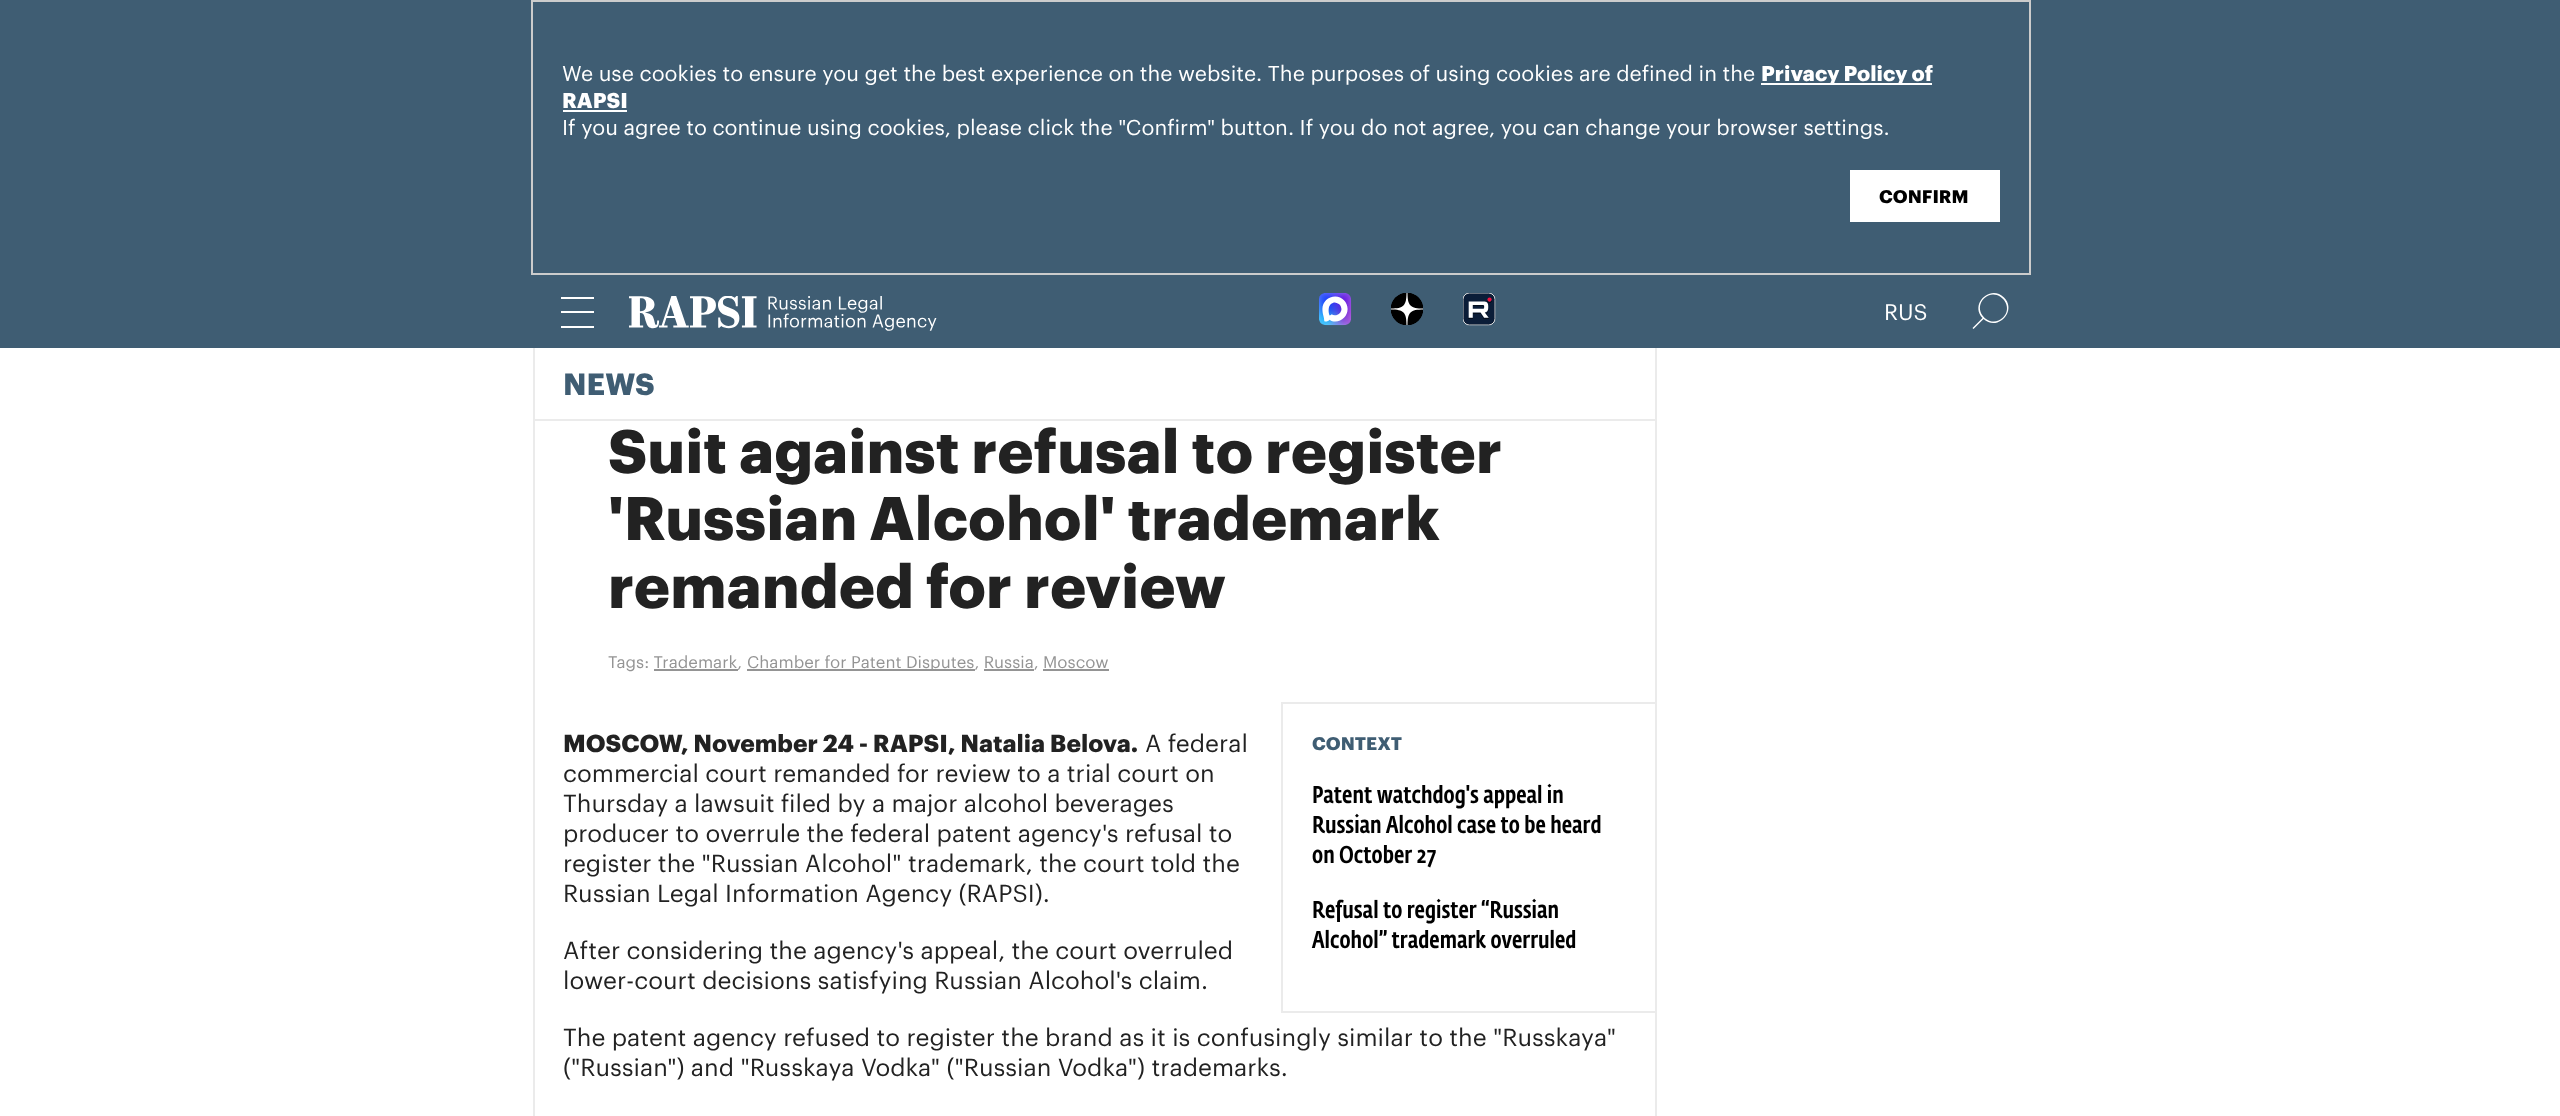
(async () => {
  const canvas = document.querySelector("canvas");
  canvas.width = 2560;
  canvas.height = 1116;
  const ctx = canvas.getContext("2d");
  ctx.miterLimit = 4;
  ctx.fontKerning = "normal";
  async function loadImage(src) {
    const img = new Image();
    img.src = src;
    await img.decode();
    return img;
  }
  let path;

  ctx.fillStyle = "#ffffff";
  ctx.fillRect(0, 0, 2560, 1116);
  ctx.fillStyle = "#3f5d73";
  ctx.fillRect(0, 0, 2560, 348);
  ctx.strokeStyle = "#cccccc";
  ctx.lineWidth = 2;
  ctx.strokeRect(532, 1, 1498, 273);
  for (const [x, y, w, h, color] of [
    [1761, 83, 171, 2, "#ffffff"],
    [563, 110, 64, 2, "#ffffff"],
    [1850, 170, 150, 52, "#ffffff"],
    [561, 297, 33, 2, "#ffffff"],
    [561, 311, 33, 2, "#ffffff"],
    [561, 326, 33, 2, "#ffffff"],
  ]) {
    ctx.fillStyle = color;
    ctx.fillRect(x, y, w, h);
  }
  ctx.drawImage(await loadImage("img/1.png"), 629, 296, 308, 35);
  ctx.drawImage(await loadImage("img/2.png"), 1319, 293, 33, 33);
  ctx.drawImage(await loadImage("img/3.png"), 1391, 293, 32, 32);
  ctx.drawImage(await loadImage("img/4.png"), 1463, 293, 33, 33);
  path = new Path2D("M1983.5 319C1997.5 332 2017.5 311 2004 297.5C1990.5 284 1969.5 304 1982.5 318L1972.5 328L1973.5 329ZM2003 317.5C1990.5 330 1971.5 311 1984 298.5C1996.5 286 2015.5 305.5 2003 317.5Z");
  ctx.fill(path);
  for (const [x, y, w, h, color] of [
    [533, 348, 2, 768, "#ebebeb"],
    [534, 419, 1122, 2, "#ebebeb"],
    [1281, 702, 375, 2, "#ebebeb"],
    [1281, 1011, 375, 2, "#ebebeb"],
    [1655, 348, 2, 768, "#ebebeb"],
    [747, 669, 228, 2, "#949494"],
    [654, 669, 84, 2, "#949494"],
    [984, 669, 50, 2, "#949494"],
    [1043, 669, 66, 2, "#949494"],
    [1281, 702, 2, 311, "#ebebeb"],
  ]) {
    ctx.fillStyle = color;
    ctx.fillRect(x, y, w, h);
  }
  ctx.font = "21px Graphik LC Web";
  ctx.fillStyle = "#ffffff";
  ctx.fillText("We use cookies to ensure you get the best experience on the website. The purposes of using cookies are defined in the", 562, 81);
  ctx.font = "bold 21px Graphik LC Web";
  ctx.fillText("Privacy Policy of", 1761, 81);
  ctx.fillText("RAPSI", 562, 108);
  ctx.font = "21px Graphik LC Web";
  ctx.fillText("If you agree to continue using cookies, please click the \"Confirm\" button. If you do not agree, you can change your browser settings.", 562, 135);
  ctx.font = "bold 18px Graphik LC Web";
  ctx.fillStyle = "#000000";
  ctx.fillText("CONFIRM", 1879, 203);
  ctx.font = "22px Graphik LC Web";
  ctx.fillStyle = "#ffffff";
  ctx.fillText("RUS", 1884, 320);
  ctx.font = "bold 30px Graphik LC Web";
  ctx.fillStyle = "#3f5d73";
  ctx.fillText("NEWS", 563, 395);
  ctx.font = "bold 60px Graphik LC Web";
  ctx.fillStyle = "#222222";
  for (const [text, x, y] of [
    ["Suit against refusal to register", 608, 473],
    ["'Russian Alcohol' trademark", 608, 540],
    ["remanded for review", 608, 608],
  ]) {
    ctx.fillText(text, x, y);
  }
  ctx.font = "16.5px Graphik LC Web";
  ctx.fillStyle = "#949494";
  ctx.fillText("Tags: Trademark,", 608, 668);
  ctx.fillText("Chamber for Patent Disputes, Russia, Moscow", 747, 668);
  ctx.font = "bold 24px Graphik LC Web";
  ctx.fillStyle = "#222222";
  ctx.fillText("MOSCOW, November 24 - RAPSI, Natalia Belova.", 563, 752);
  ctx.font = "24px Graphik LC Web";
  for (const [text, x, y] of [
    ["A federal", 1145, 752],
    ["commercial court remanded for review to a trial court on", 563, 782],
    ["Thursday a lawsuit filed by a major alcohol beverages", 563, 812],
    ["producer to overrule the federal patent agency's refusal to", 563, 842],
    ["register the \"Russian Alcohol\" trademark, the court told the", 563, 872],
    ["Russian Legal Information Agency (RAPSI).", 563, 902],
  ]) {
    ctx.fillText(text, x, y);
  }
  ctx.font = "bold 18px Graphik LC Web";
  ctx.fillStyle = "#3f5d73";
  ctx.fillText("CONTEXT", 1312, 750);
  ctx.font = "500 24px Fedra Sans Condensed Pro";
  ctx.fillStyle = "#000000";
  for (const [text, x, y] of [
    ["Patent watchdog's appeal in", 1312, 803],
    ["Russian Alcohol case to be heard", 1312, 833],
    ["on October 27", 1312, 863],
    ["Refusal to register “Russian", 1312, 918],
    ["Alcohol” trademark overruled", 1312, 948],
  ]) {
    ctx.fillText(text, x, y);
  }
  ctx.font = "24px Graphik LC Web";
  ctx.fillStyle = "#222222";
  for (const [text, x, y] of [
    ["After considering the agency's appeal, the court overruled", 563, 959],
    ["lower-court decisions satisfying Russian Alcohol's claim.", 563, 989],
    ["The patent agency refused to register the brand as it is confusingly similar to the \"Russkaya\"", 563, 1046],
    ["(\"Russian\") and \"Russkaya Vodka\" (\"Russian Vodka\") trademarks.", 563, 1076],
  ]) {
    ctx.fillText(text, x, y);
  }
})();
